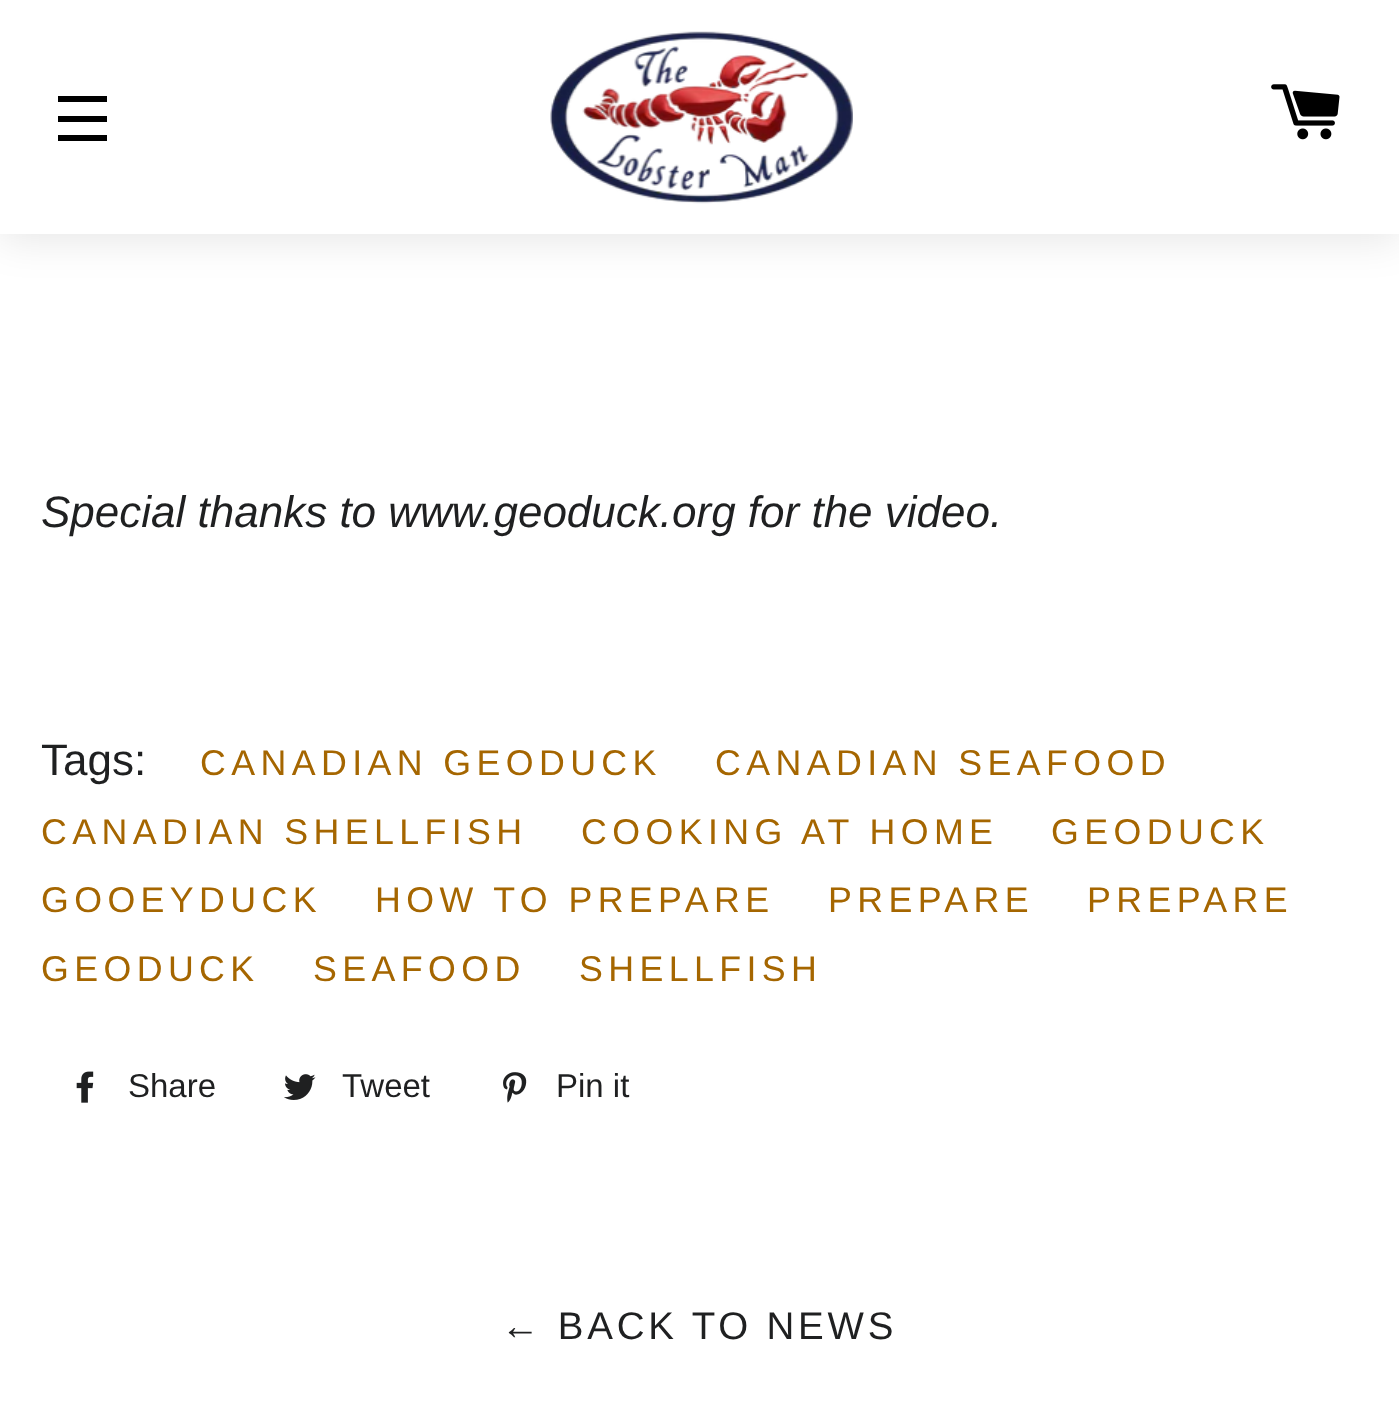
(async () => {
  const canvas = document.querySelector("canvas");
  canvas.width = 1399;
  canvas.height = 1422;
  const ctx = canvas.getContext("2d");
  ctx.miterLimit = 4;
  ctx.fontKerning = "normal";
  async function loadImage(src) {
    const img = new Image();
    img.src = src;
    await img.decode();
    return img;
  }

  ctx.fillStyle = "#ffffff";
  ctx.fillRect(0, 0, 1399, 1422);
  ctx.fillStyle = "rgba(0, 0, 0, 0.1)";
  ctx.filter = "blur(20.5px)";
  ctx.beginPath();
  ctx.rect(0, 6, 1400, 233);
  ctx.fill();
  ctx.filter = "none";
  for (const [x, y, w, h, color] of [
    [0, 0, 1399, 234, "#ffffff"],
    [58, 96, 49, 6, "#000000"],
    [58, 116, 49, 6, "#000000"],
    [58, 135, 49, 6, "#000000"],
  ]) {
    ctx.fillStyle = color;
    ctx.fillRect(x, y, w, h);
  }
  ctx.drawImage(await loadImage("img/1.png"), 550, 31, 303, 173);
  ctx.drawImage(await loadImage("img/2.png"), 1271, 84, 69, 56);
  ctx.drawImage(await loadImage("img/3.png"), 76, 1071, 18, 32);
  ctx.drawImage(await loadImage("img/4.png"), 284, 1074, 32, 26);
  ctx.drawImage(await loadImage("img/5.png"), 503, 1072, 24, 31);
  ctx.font = "italic 44px Liberation Sans";
  ctx.fillStyle = "#1f2021";
  ctx.fillText("Special thanks to www.geoduck.org for the video.", 41, 527);
  ctx.font = "44px Liberation Sans";
  ctx.fillText("Tags:", 41, 775);
  ctx.letterSpacing = "5.4px";
  ctx.font = "35.75px Liberation Sans";
  ctx.fillStyle = "#a56600";
  for (const [text, x, y] of [
    ["CANADIAN GEODUCK", 200, 775],
    ["CANADIAN SEAFOOD", 715, 775],
    ["CANADIAN SHELLFISH", 41, 844],
    ["COOKING AT HOME", 581, 844],
    ["GEODUCK", 1051, 844],
    ["GOOEYDUCK", 41, 912],
    ["HOW TO PREPARE", 375, 912],
    ["PREPARE", 828, 912],
    ["PREPARE", 1087, 912],
    ["GEODUCK", 41, 981],
    ["SEAFOOD", 313, 981],
    ["SHELLFISH", 579, 981],
  ]) {
    ctx.fillText(text, x, y);
  }
  ctx.letterSpacing = "0px";
  ctx.font = "33px Liberation Sans";
  ctx.fillStyle = "#1f2021";
  for (const [text, x, y] of [
    ["Share", 128, 1097],
    ["Tweet", 342, 1097],
    ["Pin it", 556, 1097],
  ]) {
    ctx.fillText(text, x, y);
  }
  ctx.letterSpacing = "3.8px";
  ctx.font = "38.5px Liberation Sans";
  ctx.fillText("← BACK TO NEWS", 501, 1339);
})();
